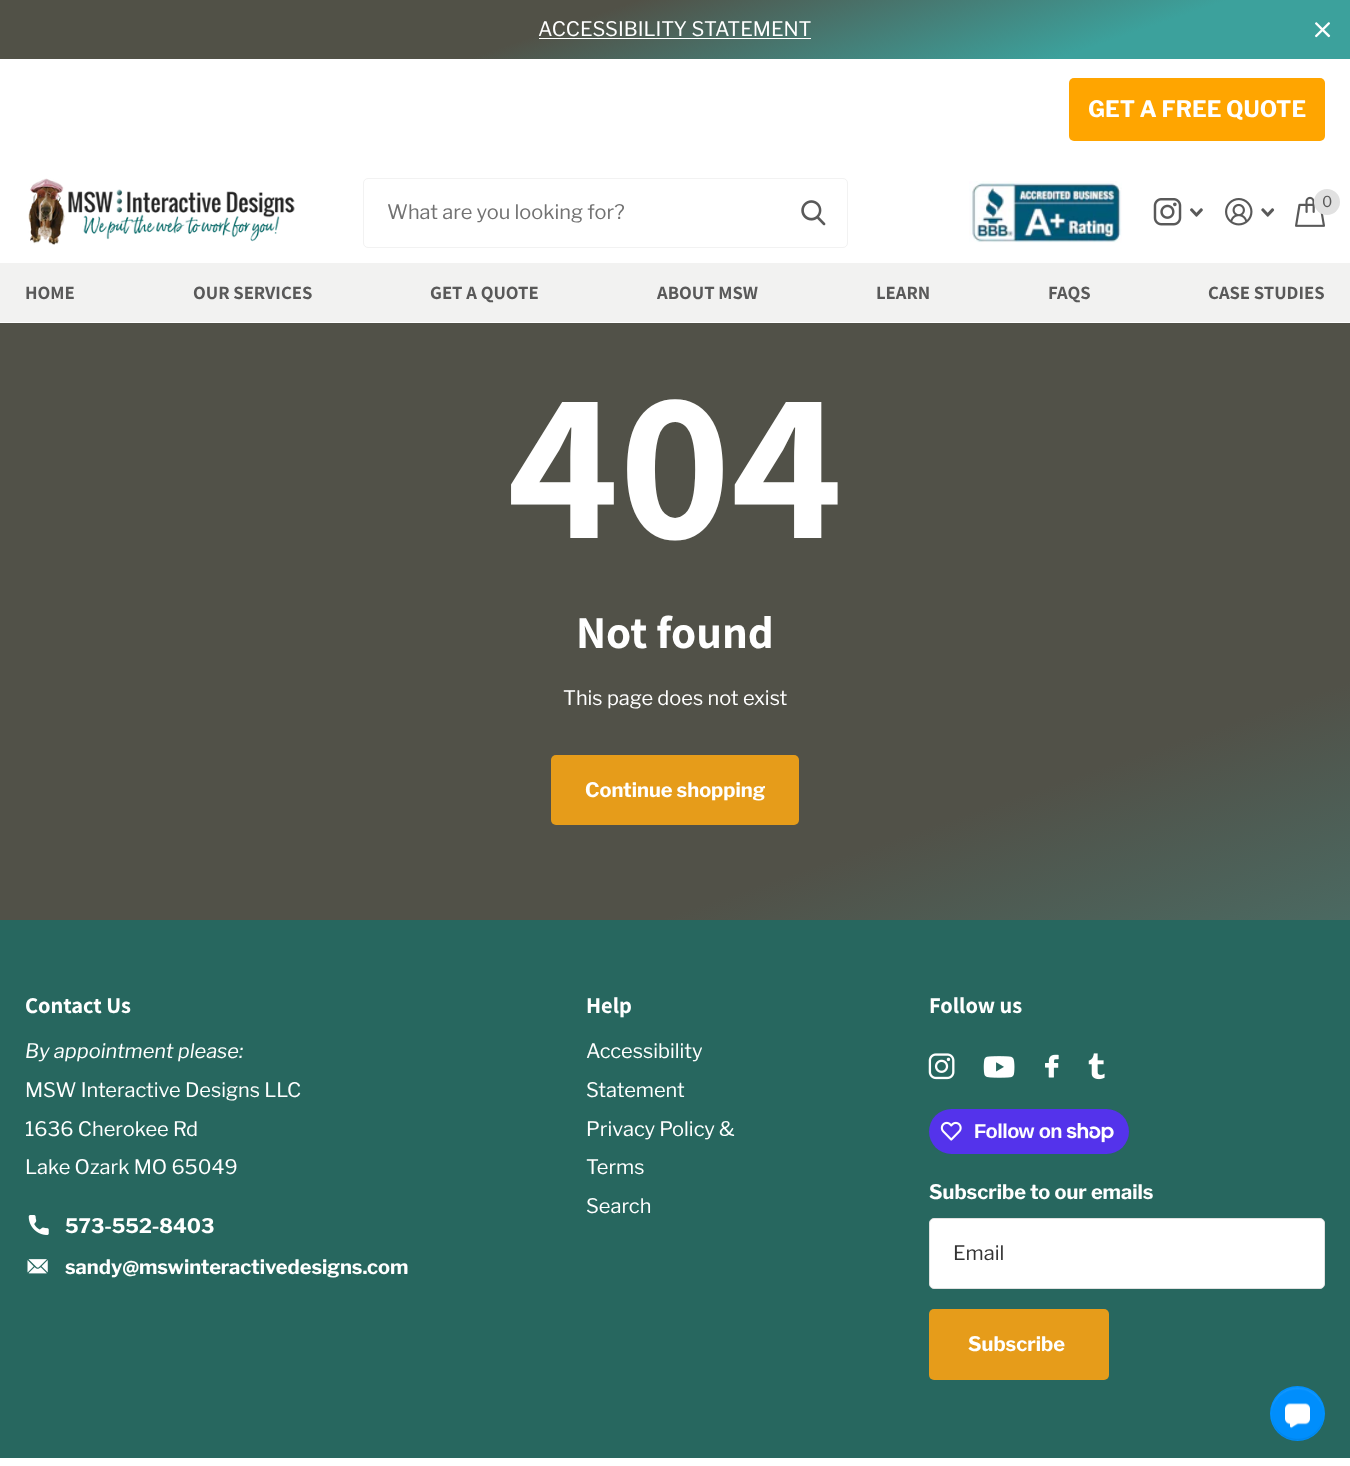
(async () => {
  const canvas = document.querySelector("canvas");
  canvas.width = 1350;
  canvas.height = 1466;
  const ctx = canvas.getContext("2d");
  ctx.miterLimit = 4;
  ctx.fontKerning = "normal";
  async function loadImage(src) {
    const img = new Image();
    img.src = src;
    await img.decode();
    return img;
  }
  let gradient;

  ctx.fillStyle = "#ffffff";
  ctx.fillRect(0, 0, 1350, 1466);
  gradient = ctx.createLinearGradient(756, 263, 594, -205);
  gradient.addColorStop(0.19, "#3ca19c");
  gradient.addColorStop(0.58, "#515147");
  ctx.fillStyle = gradient;
  ctx.fillRect(0, 0, 1350, 59);
  ctx.fillStyle = "#ffffff";
  ctx.fillRect(539, 38, 272, 1);
  ctx.drawImage(await loadImage("img/1.png"), 1315, 22, 16, 16);
  ctx.fillStyle = "#ffa500";
  ctx.beginPath();
  ctx.roundRect(1069, 78, 256, 63, 5);
  ctx.fill();
  ctx.drawImage(await loadImage("img/2.png"), 28, 178, 267, 67);
  ctx.drawImage(await loadImage("img/3.png"), 969, 181, 153, 62);
  ctx.drawImage(await loadImage("img/4.png"), 1153, 198, 29, 28);
  ctx.drawImage(await loadImage("img/5.png"), 1190, 208, 13, 9);
  ctx.drawImage(await loadImage("img/6.png"), 1225, 198, 28, 28);
  ctx.drawImage(await loadImage("img/7.png"), 1261, 208, 14, 9);
  ctx.drawImage(await loadImage("img/8.png"), 1295, 196, 30, 31);
  ctx.fillStyle = "#e1e1e1";
  ctx.beginPath();
  ctx.arc(1327, 202, 13, 0, Math.PI * 2);
  ctx.fill();
  ctx.beginPath();
  ctx.roundRect(363.5, 178.5, 484, 69, 4.5);
  ctx.strokeStyle = "#f2f2f2";
  ctx.stroke();
  ctx.drawImage(await loadImage("img/9.png"), 801, 200, 25, 26);
  ctx.fillStyle = "#f2f2f1";
  ctx.fillRect(0, 263, 1350, 59);
  gradient = ctx.createLinearGradient(985, 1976, 365, 174);
  gradient.addColorStop(0.19, "#3ca19c");
  gradient.addColorStop(0.58, "#515148");
  ctx.fillStyle = gradient;
  ctx.fillRect(0, 323, 1350, 597);
  ctx.fillStyle = "#e69c1a";
  ctx.beginPath();
  ctx.roundRect(551, 755, 248, 70, 5);
  ctx.fill();
  ctx.fillStyle = "#27675f";
  ctx.fillRect(0, 920, 1350, 538);
  ctx.drawImage(await loadImage("img/10.png"), 28, 1215, 21, 20);
  ctx.drawImage(await loadImage("img/11.png"), 27, 1259, 21, 15);
  ctx.drawImage(await loadImage("img/12.png"), 928, 1053, 27, 27);
  ctx.drawImage(await loadImage("img/13.png"), 983, 1056, 32, 22);
  ctx.drawImage(await loadImage("img/14.png"), 1045, 1054, 14, 24);
  ctx.drawImage(await loadImage("img/15.png"), 1088, 1053, 17, 27);
  ctx.fillStyle = "#5433eb";
  ctx.beginPath();
  ctx.roundRect(929, 1109, 200, 45, 22.5);
  ctx.fill();
  ctx.drawImage(await loadImage("img/16.png"), 940, 1121, 22, 20);
  ctx.drawImage(await loadImage("img/17.png"), 1066, 1123, 48, 20);
  ctx.fillStyle = "#ffffff";
  ctx.beginPath();
  ctx.roundRect(929.5, 1218.5, 395, 70, 4.5);
  ctx.fill();
  ctx.strokeStyle = "#e1e1e1";
  ctx.stroke();
  ctx.fillStyle = "#e69c1a";
  ctx.beginPath();
  ctx.roundRect(929, 1309, 180, 71, 5);
  ctx.fill();
  ctx.fillStyle = "#0090ff";
  ctx.beginPath();
  ctx.arc(1297.5, 1413.5, 27.5, 0, Math.PI * 2);
  ctx.fill();
  ctx.drawImage(await loadImage("img/18.png"), 1272, 1387, 51, 54);
  ctx.font = "20px Libre Franklin";
  ctx.fillStyle = "#ffffff";
  ctx.fillText("ACCESSIBILITY STATEMENT", 538, 36);
  ctx.font = "bold 22.5px Libre Franklin";
  ctx.fillText("GET A FREE QUOTE", 1088, 117);
  ctx.font = "15px Libre Franklin";
  ctx.fillStyle = "#595959";
  ctx.fillText("0", 1322, 207);
  ctx.font = "20px Libre Franklin";
  ctx.fillStyle = "#727272";
  ctx.fillText("What are you looking for?", 387, 219);
  ctx.font = "bold 18.75px Assistant";
  ctx.fillStyle = "#595959";
  for (const [text, x, y] of [
    ["HOME", 25, 299],
    ["OUR SERVICES", 193, 299],
    ["GET A QUOTE", 430, 299],
    ["ABOUT MSW", 657, 299],
    ["LEARN", 876, 299],
    ["FAQS", 1048, 299],
    ["CASE STUDIES", 1208, 299],
  ]) {
    ctx.fillText(text, x, y);
  }
  ctx.font = "bold 214px Assistant";
  ctx.fillStyle = "#ffffff";
  ctx.fillText("404", 507, 538);
  ctx.font = "bold 45.5px Assistant";
  ctx.fillText("Not found", 576, 648);
  ctx.font = "20px Libre Franklin";
  ctx.fillText("This page does not exist", 563, 705);
  ctx.font = "bold 20px Libre Franklin";
  ctx.fillText("Continue shopping", 585, 797);
  ctx.font = "bold 22.5px Assistant";
  ctx.fillText("Contact Us", 25, 1013);
  ctx.font = "italic 20px Libre Franklin";
  ctx.fillText("By appointment please:", 25, 1058);
  ctx.font = "20px Libre Franklin";
  for (const [text, x, y] of [
    ["MSW Interactive Designs LLC", 25, 1097],
    ["1636 Cherokee Rd", 25, 1136],
    ["Lake Ozark MO 65049", 25, 1174],
  ]) {
    ctx.fillText(text, x, y);
  }
  ctx.font = "bold 20px Libre Franklin";
  ctx.fillText("573-552-8403", 65, 1233);
  ctx.fillText("sandy@mswinteractivedesigns.com", 65, 1274);
  ctx.font = "bold 22.5px Assistant";
  ctx.fillText("Help", 586, 1013);
  ctx.font = "20px Libre Franklin";
  for (const [text, x, y] of [
    ["Accessibility", 586, 1058],
    ["Statement", 586, 1097],
    ["Privacy Policy &", 586, 1136],
    ["Terms", 586, 1174],
    ["Search", 586, 1213],
  ]) {
    ctx.fillText(text, x, y);
  }
  ctx.font = "bold 22.5px Assistant";
  ctx.fillText("Follow us", 929, 1013);
  ctx.letterSpacing = "-0.6px";
  ctx.font = "bold 20px Liberation Sans";
  ctx.fillText("Follow on", 974, 1138);
  ctx.letterSpacing = "0px";
  ctx.font = "bold 20px Libre Franklin";
  ctx.fillText("Subscribe to our emails", 929, 1199);
  ctx.font = "20px Libre Franklin";
  ctx.fillStyle = "#333333";
  ctx.fillText("Email", 953, 1260);
  ctx.font = "bold 20px Libre Franklin";
  ctx.fillStyle = "#ffffff";
  ctx.fillText("Subscribe", 968, 1351);
})();
